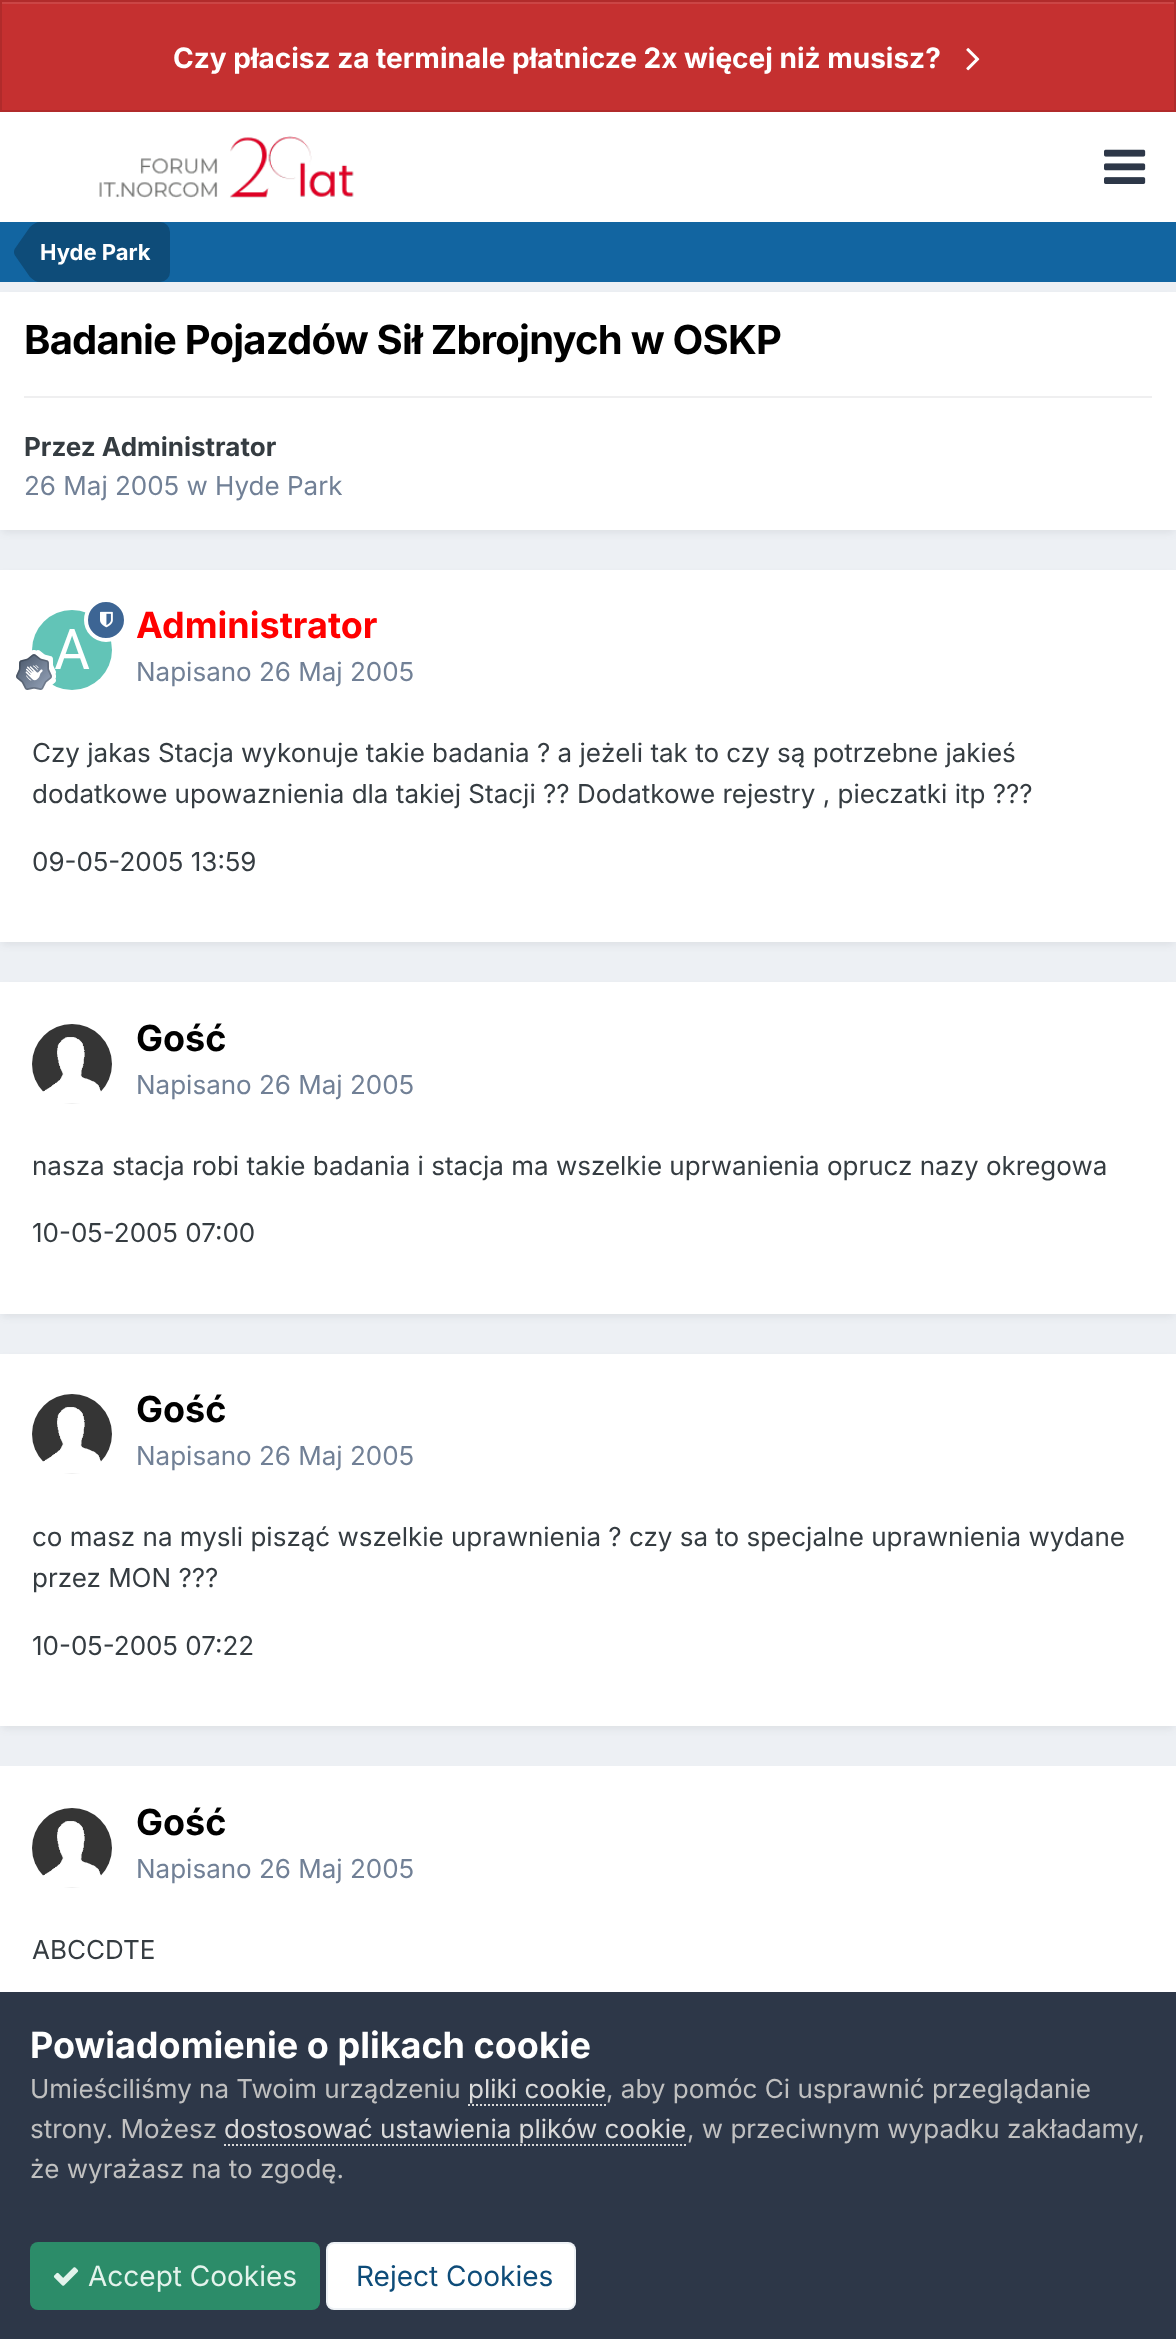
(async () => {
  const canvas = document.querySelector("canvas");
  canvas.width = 1176;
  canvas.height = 2339;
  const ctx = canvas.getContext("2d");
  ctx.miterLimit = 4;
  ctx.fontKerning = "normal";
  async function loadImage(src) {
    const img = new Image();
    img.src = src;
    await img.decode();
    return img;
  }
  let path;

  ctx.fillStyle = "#edf0f4";
  ctx.fillRect(0, 0, 1176, 2339);
  ctx.fillStyle = "#c53030";
  ctx.fillRect(2, 4, 1172, 106);
  ctx.fillStyle = "#cb4545";
  ctx.fillRect(2, 2, 1172, 2);
  ctx.strokeStyle = "#b12b2b";
  ctx.lineWidth = 2;
  ctx.strokeRect(1, 1, 1174, 110);
  ctx.drawImage(await loadImage("img/1.png"), 966, 48, 14, 23);
  ctx.fillStyle = "#ffffff";
  ctx.fillRect(0, 112, 1176, 110);
  ctx.drawImage(await loadImage("img/2.png"), 99, 136, 255, 62);
  ctx.drawImage(await loadImage("img/3.png"), 1104, 149, 42, 35);
  ctx.fillStyle = "#1265a1";
  ctx.fillRect(0, 222, 1176, 60);
  ctx.fillStyle = "#0e4c79";
  ctx.beginPath();
  ctx.roundRect(40, 222, 130, 60, [0, 10, 10, 0]);
  ctx.fill();
  path = new Path2D("M40 252V282C36.5 282 33 280 30 277L15 255.5C14.5 254.5 14 253.5 14 252ZM40 252H14C14 250.5 14.5 249.5 15 248.5L30 227C33 224 36.5 222 40 222Z");
  ctx.fill(path);
  ctx.fillStyle = "rgba(45, 55, 72, 0.1)";
  ctx.filter = "blur(4px)";
  ctx.beginPath();
  ctx.rect(2, 298, 1172, 234);
  ctx.fill();
  ctx.filter = "none";
  ctx.fillStyle = "#ffffff";
  ctx.fillRect(0, 292, 1176, 238);
  ctx.fillStyle = "#efeff0";
  ctx.fillRect(24, 396, 1128, 2);
  ctx.fillStyle = "rgba(45, 55, 72, 0.1)";
  ctx.filter = "blur(4px)";
  ctx.beginPath();
  ctx.rect(2, 576, 1172, 368);
  ctx.fill();
  ctx.filter = "none";
  ctx.fillStyle = "#ffffff";
  ctx.fillRect(0, 570, 1176, 372);
  ctx.drawImage(await loadImage("img/5.png"), 32, 610, 80, 80);
  ctx.fillStyle = "#3d6594";
  ctx.beginPath();
  ctx.arc(106, 620, 20, 0, Math.PI * 2);
  ctx.fill();
  ctx.strokeStyle = "#ffffff";
  ctx.lineWidth = 4;
  ctx.stroke();
  ctx.drawImage(await loadImage("img/4.png"), 100, 611, 13, 17);
  ctx.drawImage(await loadImage("img/6.png"), 16, 650, 40, 40);
  ctx.fillStyle = "rgba(45, 55, 72, 0.1)";
  ctx.filter = "blur(4px)";
  ctx.beginPath();
  ctx.rect(2, 988, 1172, 328);
  ctx.fill();
  ctx.filter = "none";
  ctx.fillStyle = "#ffffff";
  ctx.fillRect(0, 982, 1176, 332);
  ctx.drawImage(await loadImage("img/7.png"), 32, 1024, 80, 80);
  ctx.fillStyle = "rgba(45, 55, 72, 0.1)";
  ctx.filter = "blur(4px)";
  ctx.beginPath();
  ctx.rect(2, 1360, 1172, 368);
  ctx.fill();
  ctx.filter = "none";
  ctx.fillStyle = "#ffffff";
  ctx.fillRect(0, 1354, 1176, 372);
  ctx.drawImage(await loadImage("img/7.png"), 32, 1394, 80, 80);
  ctx.fillRect(0, 1766, 1176, 226);
  ctx.drawImage(await loadImage("img/8.png"), 32, 1808, 80, 80);
  ctx.fillStyle = "#2d3748";
  ctx.fillRect(0, 1992, 1176, 347);
  path = new Path2D("M468 2105H606");
  ctx.strokeStyle = "#dadada";
  ctx.lineWidth = 2;
  ctx.setLineDash([2, 2]);
  ctx.stroke(path);
  path = new Path2D("M224 2145H686");
  ctx.stroke(path);
  ctx.fillStyle = "#2c8c69";
  ctx.beginPath();
  ctx.roundRect(30, 2242, 290, 68, 8);
  ctx.fill();
  ctx.drawImage(await loadImage("img/9.png"), 53, 2267, 26, 19);
  ctx.fillStyle = "#ffffff";
  ctx.beginPath();
  ctx.roundRect(326, 2242, 250, 68, 8);
  ctx.fill();
  ctx.beginPath();
  ctx.roundRect(327, 2243, 248, 66, 7);
  ctx.strokeStyle = "rgba(14, 76, 121, 0.07)";
  ctx.setLineDash([]);
  ctx.stroke();
  ctx.font = "bold 28px Inter";
  ctx.fillText("Czy płacisz za terminale płatnicze 2x więcej niż musisz?", 173, 68);
  ctx.font = "bold 22px Inter";
  ctx.fillText("Hyde Park", 40, 260);
  ctx.letterSpacing = "-0.8px";
  ctx.font = "bold 40px Inter";
  ctx.fillStyle = "#000000";
  ctx.fillText("Badanie Pojazdów Sił Zbrojnych w OSKP", 24, 354);
  ctx.letterSpacing = "0px";
  ctx.font = "bold 26px Inter";
  ctx.fillStyle = "#353c41";
  ctx.fillText("Przez Administrator", 24, 456);
  ctx.font = "26px Inter";
  ctx.fillStyle = "#718096";
  ctx.fillText("26 Maj 2005 w Hyde Park", 24, 495);
  ctx.font = "bold 36px Inter";
  ctx.fillStyle = "#ff0000";
  ctx.fillText("Administrator", 136, 638);
  ctx.font = "26px Inter";
  ctx.fillStyle = "#718096";
  ctx.fillText("Napisano 26 Maj 2005", 136, 681);
  ctx.fillStyle = "#353c41";
  for (const [text, x, y] of [
    ["Czy jakas Stacja wykonuje takie badania ? a jeżeli tak to czy są potrzebne jakieś", 32, 762],
    ["dodatkowe upowaznienia dla takiej Stacji ?? Dodatkowe rejestry , pieczatki itp ???", 32, 803],
    ["09-05-2005 13:59", 32, 871],
  ]) {
    ctx.fillText(text, x, y);
  }
  ctx.font = "bold 36px Inter";
  ctx.fillStyle = "#000000";
  ctx.fillText("Gość", 136, 1051);
  ctx.font = "26px Inter";
  ctx.fillStyle = "#718096";
  ctx.fillText("Napisano 26 Maj 2005", 136, 1094);
  ctx.fillStyle = "#353c41";
  ctx.fillText("nasza stacja robi takie badania i stacja ma wszelkie uprwanienia oprucz nazy okregowa", 32, 1175);
  ctx.fillText("10-05-2005 07:00", 32, 1242);
  ctx.font = "bold 36px Inter";
  ctx.fillStyle = "#000000";
  ctx.fillText("Gość", 136, 1422);
  ctx.font = "26px Inter";
  ctx.fillStyle = "#718096";
  ctx.fillText("Napisano 26 Maj 2005", 136, 1465);
  ctx.fillStyle = "#353c41";
  for (const [text, x, y] of [
    ["co masz na mysli pisząć wszelkie uprawnienia ? czy sa to specjalne uprawnienia wydane", 32, 1546],
    ["przez MON ???", 32, 1587],
    ["10-05-2005 07:22", 32, 1655],
  ]) {
    ctx.fillText(text, x, y);
  }
  ctx.font = "bold 36px Inter";
  ctx.fillStyle = "#000000";
  ctx.fillText("Gość", 136, 1835);
  ctx.font = "26px Inter";
  ctx.fillStyle = "#718096";
  ctx.fillText("Napisano 26 Maj 2005", 136, 1878);
  ctx.fillStyle = "#353c41";
  ctx.fillText("ABCCDTE", 32, 1959);
  ctx.font = "bold 36px Inter";
  ctx.fillStyle = "#ffffff";
  ctx.fillText("Powiadomienie o plikach cookie", 30, 2058);
  ctx.font = "26px Inter";
  ctx.fillStyle = "#c0c0c0";
  ctx.fillText("Umieściliśmy na Twoim urządzeniu", 30, 2098);
  ctx.fillStyle = "#dadada";
  ctx.fillText("pliki cookie", 468, 2098);
  ctx.fillStyle = "#c0c0c0";
  ctx.fillText(", aby pomóc Ci usprawnić przeglądanie", 606, 2098);
  ctx.fillText("strony. Możesz", 30, 2138);
  ctx.fillStyle = "#dadada";
  ctx.fillText("dostosować ustawienia plików cookie", 224, 2138);
  ctx.fillStyle = "#c0c0c0";
  ctx.fillText(", w przeciwnym wypadku zakładamy,", 687, 2138);
  ctx.fillText("że wyrażasz na to zgodę.", 30, 2178);
  ctx.font = "28px Inter";
  ctx.fillStyle = "#e3f3ec";
  ctx.fillText("Accept Cookies", 88, 2286);
  ctx.fillStyle = "#0e4c79";
  ctx.fillText("Reject Cookies", 356, 2286);
})();
